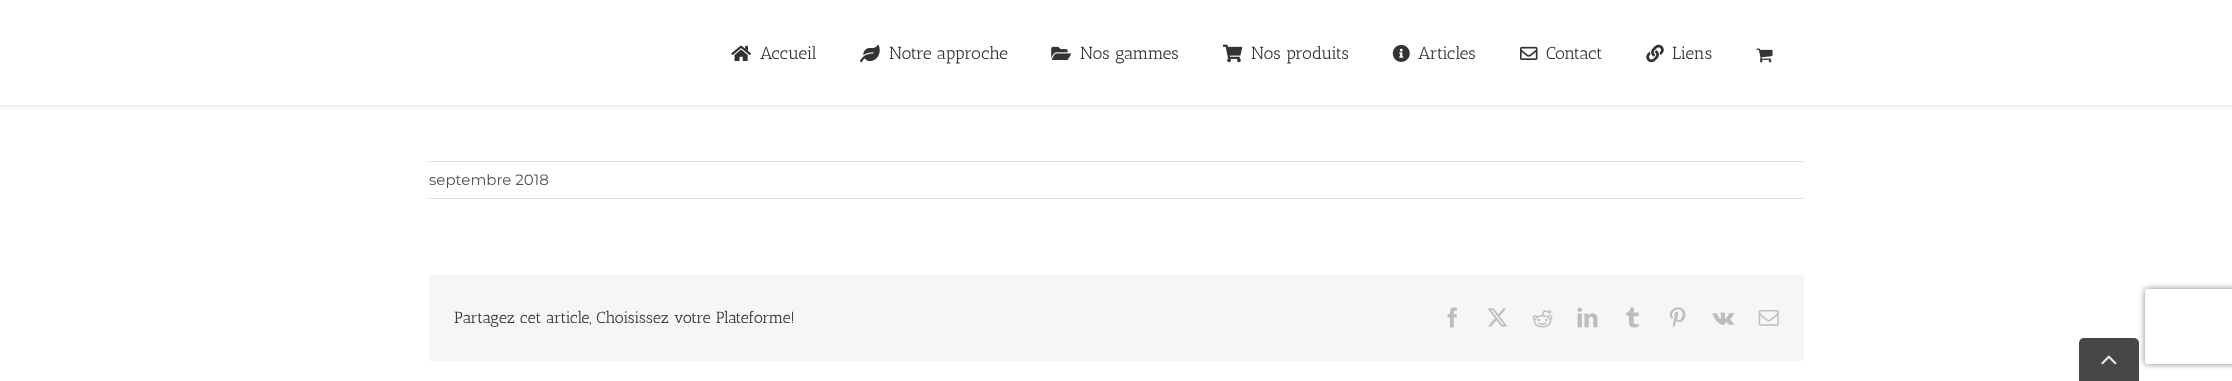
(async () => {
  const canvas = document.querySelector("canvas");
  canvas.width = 2232;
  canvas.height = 381;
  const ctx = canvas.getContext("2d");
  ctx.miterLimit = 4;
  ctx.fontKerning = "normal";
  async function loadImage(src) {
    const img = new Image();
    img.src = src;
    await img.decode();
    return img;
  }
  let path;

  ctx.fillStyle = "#ffffff";
  ctx.fillRect(0, 0, 2232, 381);
  ctx.fillStyle = "rgba(0, 0, 0, 0.12)";
  ctx.filter = "blur(2px)";
  ctx.beginPath();
  ctx.rect(0, 1, 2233, 105);
  ctx.fill();
  ctx.filter = "none";
  ctx.fillStyle = "#ffffff";
  ctx.fillRect(0, 0, 2232, 105);
  ctx.drawImage(await loadImage("img/1.png"), 731, 45, 20, 17);
  ctx.drawImage(await loadImage("img/2.png"), 860, 44, 20, 19);
  ctx.drawImage(await loadImage("img/3.png"), 1051, 46, 20, 14);
  ctx.drawImage(await loadImage("img/4.png"), 1223, 44, 20, 19);
  ctx.drawImage(await loadImage("img/5.png"), 1392, 45, 18, 17);
  ctx.drawImage(await loadImage("img/6.png"), 1520, 46, 18, 14);
  ctx.drawImage(await loadImage("img/7.png"), 1646, 44, 18, 19);
  ctx.drawImage(await loadImage("img/8.png"), 1756, 48, 17, 15);
  for (const [x, y, w, h, color] of [
    [429, 161, 1375, 1, "#e0dede"],
    [429, 198, 1375, 1, "#e0dede"],
    [429, 274, 1375, 87, "#f6f6f6"],
  ]) {
    ctx.fillStyle = color;
    ctx.fillRect(x, y, w, h);
  }
  ctx.drawImage(await loadImage("img/9.png"), 1447, 307, 10, 21);
  ctx.drawImage(await loadImage("img/10.png"), 1487, 308, 21, 19);
  ctx.drawImage(await loadImage("img/11.png"), 1532, 310, 21, 18);
  ctx.drawImage(await loadImage("img/12.png"), 1577, 307, 21, 21);
  ctx.drawImage(await loadImage("img/13.png"), 1626, 307, 13, 21);
  ctx.drawImage(await loadImage("img/14.png"), 1669, 307, 17, 21);
  ctx.drawImage(await loadImage("img/15.png"), 1712, 312, 22, 13);
  ctx.drawImage(await loadImage("img/16.png"), 1758, 310, 21, 16);
  ctx.save();
  path = new Path2D("M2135 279H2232V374H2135ZM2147.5 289H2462.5C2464 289 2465 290 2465 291.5V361.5C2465 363 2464 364 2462.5 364H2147.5C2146 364 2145 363 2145 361.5V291.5C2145 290 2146 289 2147.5 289Z");
  ctx.clip(path, "evenodd");
  ctx.fillStyle = "#808080";
  ctx.filter = "blur(3px)";
  ctx.beginPath();
  ctx.roundRect(2145, 289, 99, 75, 2.5);
  ctx.fill();
  ctx.filter = "none";
  ctx.restore();
  ctx.fillStyle = "#474747";
  ctx.beginPath();
  ctx.roundRect(2079, 338, 60, 43, [5, 5, 0, 0]);
  ctx.fill();
  ctx.drawImage(await loadImage("img/17.png"), 2101, 355, 16, 10);
  ctx.font = "17.5px Antic Slab";
  ctx.fillStyle = "#333333";
  for (const [text, x, y] of [
    ["Accueil", 760, 59],
    ["Notre approche", 889, 59],
    ["Nos gammes", 1080, 59],
    ["Nos produits", 1251, 59],
    ["Articles", 1418, 59],
    ["Contact", 1546, 59],
    ["Liens", 1672, 59],
  ]) {
    ctx.fillText(text, x, y);
  }
  ctx.font = "15px Montserrat";
  ctx.fillStyle = "#515151";
  ctx.fillText("septembre 2018", 429, 185);
  ctx.font = "16.25px Antic Slab";
  ctx.fillStyle = "#333333";
  ctx.fillText("Partagez cet article, Choisissez votre Plateforme!", 454, 323);
})();
